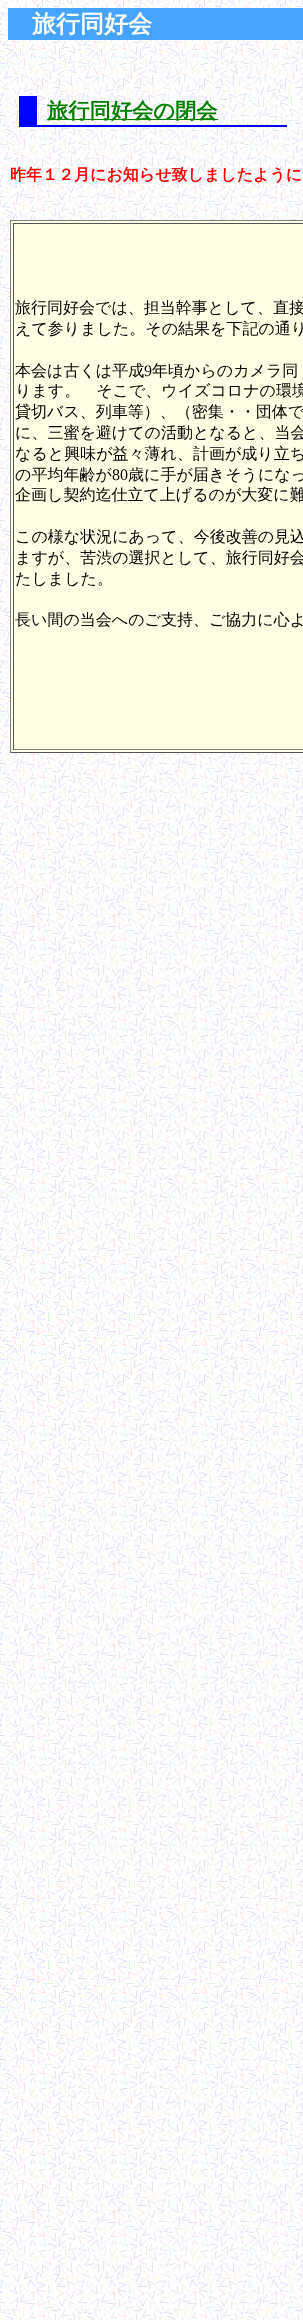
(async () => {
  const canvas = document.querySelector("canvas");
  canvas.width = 303;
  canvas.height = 2320;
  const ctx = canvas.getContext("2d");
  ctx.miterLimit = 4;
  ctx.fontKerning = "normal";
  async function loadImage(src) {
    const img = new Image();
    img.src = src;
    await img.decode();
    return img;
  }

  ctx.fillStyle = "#ffffff";
  ctx.fillRect(0, 0, 303, 2320);
  ctx.drawImage(await loadImage("img/1.png"), 0, 0, 303, 2320);
  for (const [x, y, w, h, color] of [
    [8, 8, 295, 32, "#46a3ff"],
    [37, 125, 250, 2, "#0000ff"],
    [19, 96, 18, 31, "#0000ff"],
    [47, 119, 171, 1, "#008000"],
    [11, 221, 292, 531, "#ffffe6"],
    [10, 220, 293, 1, "#808080"],
    [10, 752, 293, 1, "#555555"],
    [10, 220, 1, 533, "#808080"],
    [13, 223, 290, 1, "#555555"],
    [13, 749, 290, 1, "#808080"],
    [13, 223, 1, 527, "#555555"],
  ]) {
    ctx.fillStyle = color;
    ctx.fillRect(x, y, w, h);
  }
  ctx.font = "bold 24px WenQuanYi Zen Hei";
  ctx.fillStyle = "#ffffff";
  ctx.fillText("旅行同好会", 32, 32);
  ctx.font = "bold 21.25px WenQuanYi Zen Hei";
  ctx.fillStyle = "#008000";
  ctx.fillText("旅行同好会の閉会", 47, 118);
  ctx.font = "bold 16px WenQuanYi Zen Hei";
  ctx.fillStyle = "#ff0000";
  ctx.fillText("昨年１２月にお知らせ致しましたように", 10, 180);
  ctx.font = "500 16px WenQuanYi Zen Hei";
  ctx.fillStyle = "#000000";
  for (const [text, x, y] of [
    ["旅行同好会では、担当幹事として、直接", 15, 313],
    ["えて参りました。その結果を下記の通り", 15, 334],
    ["本会は古くは平成", 15, 376],
  ]) {
    ctx.fillText(text, x, y);
  }
  ctx.font = "16px Liberation Serif";
  ctx.fillText("9", 144, 376);
  ctx.font = "500 16px WenQuanYi Zen Hei";
  for (const [text, x, y] of [
    ["年頃からのカメラ同", 152, 376],
    ["ります。　そこで、ウイズコロナの環境", 15, 396],
    ["貸切バス、列車等）、（密集・・団体で", 15, 417],
    ["に、三蜜を避けての活動となると、当会", 15, 438],
    ["なると興味が益々薄れ、計画が成り立ち", 15, 459],
    ["の平均年齢が", 15, 480],
  ]) {
    ctx.fillText(text, x, y);
  }
  ctx.font = "16px Liberation Serif";
  ctx.fillText("80", 112, 480);
  ctx.font = "500 16px WenQuanYi Zen Hei";
  for (const [text, x, y] of [
    ["歳に手が届きそうになっ", 128, 480],
    ["企画し契約迄仕立て上げるのが大変に難", 15, 500],
    ["この様な状況にあって、今後改善の見込", 15, 542],
    ["ますが、苦渋の選択として、旅行同好会", 15, 563],
    ["たしました。", 15, 584],
    ["長い間の当会へのご支持、ご協力に心よ", 15, 625],
  ]) {
    ctx.fillText(text, x, y);
  }
})();
